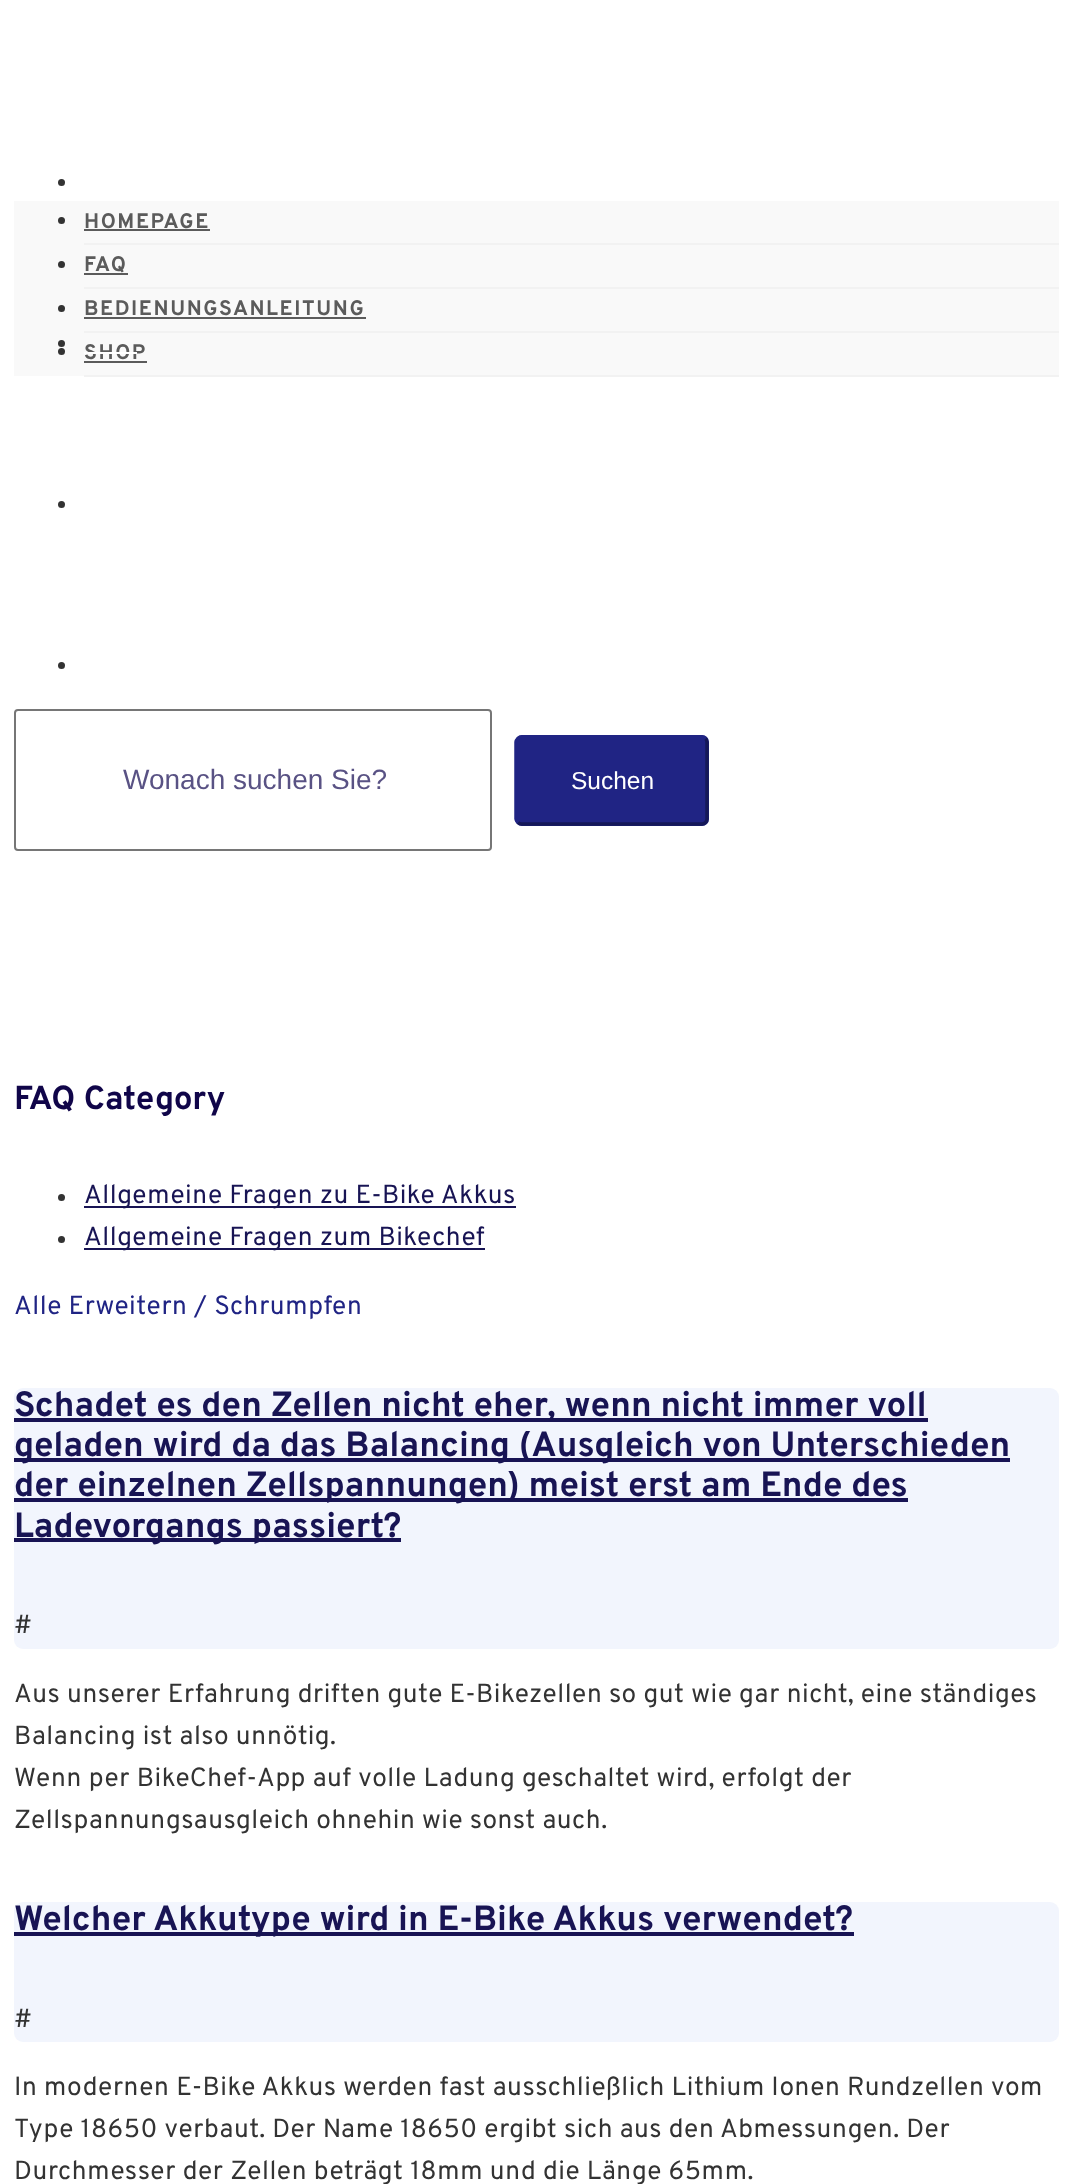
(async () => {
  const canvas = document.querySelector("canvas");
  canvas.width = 1072;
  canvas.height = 2184;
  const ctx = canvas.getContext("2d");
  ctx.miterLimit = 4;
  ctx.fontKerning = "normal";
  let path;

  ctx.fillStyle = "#ffffff";
  ctx.fillRect(0, 0, 1072, 2184);
  ctx.fillStyle = "#f2f2f2";
  ctx.fillRect(84, 376, 975, 1);
  ctx.fillStyle = "#333333";
  ctx.beginPath();
  ctx.arc(61.5, 182.5, 3.5, 0, Math.PI * 2);
  ctx.fill();
  ctx.fillStyle = "#f9f9f9";
  ctx.fillRect(14, 201, 1045, 175);
  ctx.fillStyle = "#333333";
  ctx.beginPath();
  ctx.arc(61.5, 343.5, 3.5, 0, Math.PI * 2);
  ctx.fill();
  ctx.beginPath();
  ctx.arc(61.5, 504.5, 3.5, 0, Math.PI * 2);
  ctx.fill();
  ctx.beginPath();
  ctx.arc(61.5, 665.5, 3.5, 0, Math.PI * 2);
  ctx.fill();
  ctx.fillStyle = "#f2f2f2";
  ctx.fillRect(84, 375, 975, 1);
  ctx.fillRect(84, 243, 975, 2);
  ctx.fillStyle = "#333333";
  ctx.beginPath();
  ctx.arc(61.5, 220.5, 3.5, 0, Math.PI * 2);
  ctx.fill();
  ctx.fillStyle = "#5b5b5b";
  ctx.fillRect(84, 229, 126, 2);
  ctx.fillStyle = "#f2f2f2";
  ctx.fillRect(84, 287, 975, 2);
  ctx.fillStyle = "#333333";
  ctx.beginPath();
  ctx.arc(61.5, 264.5, 3.5, 0, Math.PI * 2);
  ctx.fill();
  ctx.fillStyle = "#5b5b5b";
  ctx.fillRect(84, 273, 44, 2);
  ctx.fillStyle = "#f2f2f2";
  ctx.fillRect(84, 331, 975, 2);
  ctx.fillStyle = "#333333";
  ctx.beginPath();
  ctx.arc(61.5, 308.5, 3.5, 0, Math.PI * 2);
  ctx.fill();
  ctx.fillStyle = "#5b5b5b";
  ctx.fillRect(84, 317, 282, 2);
  ctx.fillStyle = "#333333";
  ctx.beginPath();
  ctx.arc(61.5, 351.5, 3.5, 0, Math.PI * 2);
  ctx.fill();
  ctx.fillStyle = "#5b5b5b";
  ctx.fillRect(84, 361, 63, 2);
  ctx.beginPath();
  ctx.roundRect(15, 710, 476, 140, 3);
  ctx.strokeStyle = "#767676";
  ctx.lineWidth = 2;
  ctx.stroke();
  ctx.fillStyle = "#202484";
  ctx.beginPath();
  ctx.roundRect(515, 735, 194, 91, 7);
  ctx.fill();
  path = new Path2D("M705.5 738.5C706.5 739.5 707 740.5 707 742V819C707 820.5 706.5 821.5 705.5 822.5C704.5 823.5 703 824 702 824H521.5C520 824 519 823.5 518 822.5");
  ctx.strokeStyle = "#151858";
  ctx.lineWidth = 3.5;
  ctx.stroke(path);
  path = new Path2D("M518 822.5C517 821.5 516 820.5 516 819V742C516 740.5 517 739.5 518 738.5C519 737.5 520 737 521.5 737H702C703 737 704.5 737.5 705.5 738.5");
  ctx.strokeStyle = "#202484";
  ctx.stroke(path);
  ctx.fillStyle = "#333333";
  ctx.beginPath();
  ctx.arc(61.5, 1197.5, 3.5, 0, Math.PI * 2);
  ctx.fill();
  ctx.fillStyle = "#181454";
  ctx.fillRect(84, 1206, 432, 2);
  ctx.fillStyle = "#333333";
  ctx.beginPath();
  ctx.arc(61.5, 1239.5, 3.5, 0, Math.PI * 2);
  ctx.fill();
  ctx.fillStyle = "#181454";
  ctx.fillRect(84, 1248, 401, 2);
  ctx.fillStyle = "#f2f5fd";
  ctx.beginPath();
  ctx.roundRect(14, 1388, 1045, 261, 9);
  ctx.fill();
  for (const [x, y, w, h, color] of [
    [14, 1418, 914, 4, "#181454"],
    [14, 1458, 996, 4, "#181454"],
    [14, 1498, 894, 4, "#181454"],
    [14, 1538, 387, 4, "#181454"],
  ]) {
    ctx.fillStyle = color;
    ctx.fillRect(x, y, w, h);
  }
  ctx.fillStyle = "#f2f5fd";
  ctx.beginPath();
  ctx.roundRect(14, 1902, 1045, 140, 9);
  ctx.fill();
  ctx.fillStyle = "#181454";
  ctx.fillRect(14, 1932, 840, 4);
  ctx.letterSpacing = "1.6px";
  ctx.font = "bold 21px Overpass";
  ctx.fillStyle = "#5b5b5b";
  for (const [text, x, y] of [
    ["HOMEPAGE", 84, 228],
    ["FAQ", 84, 271],
    ["BEDIENUNGSANLEITUNG", 84, 315],
    ["SHOP", 84, 359],
  ]) {
    ctx.fillText(text, x, y);
  }
  ctx.fillStyle = "#ffffff";
  ctx.fillRect(84, 352, 53, 2);
  ctx.letterSpacing = "0px";
  ctx.font = "28px Liberation Sans";
  ctx.fillStyle = "#595284";
  ctx.fillText("Wonach suchen Sie?", 123, 789);
  ctx.font = "24.5px Liberation Sans";
  ctx.fillStyle = "#ffffff";
  ctx.fillText("Suchen", 571, 789);
  ctx.font = "bold 33.25px Overpass";
  ctx.fillStyle = "#100549";
  ctx.fillText("FAQ Category", 14, 1109);
  ctx.letterSpacing = "0.53px";
  ctx.font = "26.25px Overpass";
  ctx.fillStyle = "#181454";
  ctx.fillText("Allgemeine Fragen zu E-Bike Akkus", 84, 1203);
  ctx.fillText("Allgemeine Fragen zum Bikechef", 84, 1245);
  ctx.fillStyle = "#202484";
  ctx.fillText("Alle Erweitern / Schrumpfen", 14, 1314);
  ctx.letterSpacing = "0px";
  ctx.font = "bold 35px Overpass";
  ctx.fillStyle = "#181454";
  for (const [text, x, y] of [
    ["Schadet es den Zellen nicht eher, wenn nicht immer voll", 14, 1416],
    ["geladen wird da das Balancing (Ausgleich von Unterschieden", 14, 1456],
    ["der einzelnen Zellspannungen) meist erst am Ende des", 14, 1496],
    ["Ladevorgangs passiert?", 14, 1537],
  ]) {
    ctx.fillText(text, x, y);
  }
  ctx.letterSpacing = "0.53px";
  ctx.font = "26.25px Overpass";
  ctx.fillStyle = "#333333";
  for (const [text, x, y] of [
    ["#", 14, 1633],
    ["Aus unserer Erfahrung driften gute E-Bikezellen so gut wie gar nicht, eine ständiges", 14, 1702],
    ["Balancing ist also unnötig.", 14, 1744],
    ["Wenn per BikeChef-App auf volle Ladung geschaltet wird, erfolgt der", 14, 1786],
    ["Zellspannungsausgleich ohnehin wie sonst auch.", 14, 1828],
  ]) {
    ctx.fillText(text, x, y);
  }
  ctx.letterSpacing = "0px";
  ctx.font = "bold 35px Overpass";
  ctx.fillStyle = "#181454";
  ctx.fillText("Welcher Akkutype wird in E-Bike Akkus verwendet?", 14, 1930);
  ctx.letterSpacing = "0.53px";
  ctx.font = "26.25px Overpass";
  ctx.fillStyle = "#333333";
  for (const [text, x, y] of [
    ["#", 14, 2027],
    ["In modernen E-Bike Akkus werden fast ausschließlich Lithium Ionen Rundzellen vom", 14, 2095],
    ["Type 18650 verbaut. Der Name 18650 ergibt sich aus den Abmessungen. Der", 14, 2137],
    ["Durchmesser der Zellen beträgt 18mm und die Länge 65mm.", 14, 2179],
  ]) {
    ctx.fillText(text, x, y);
  }
})();
